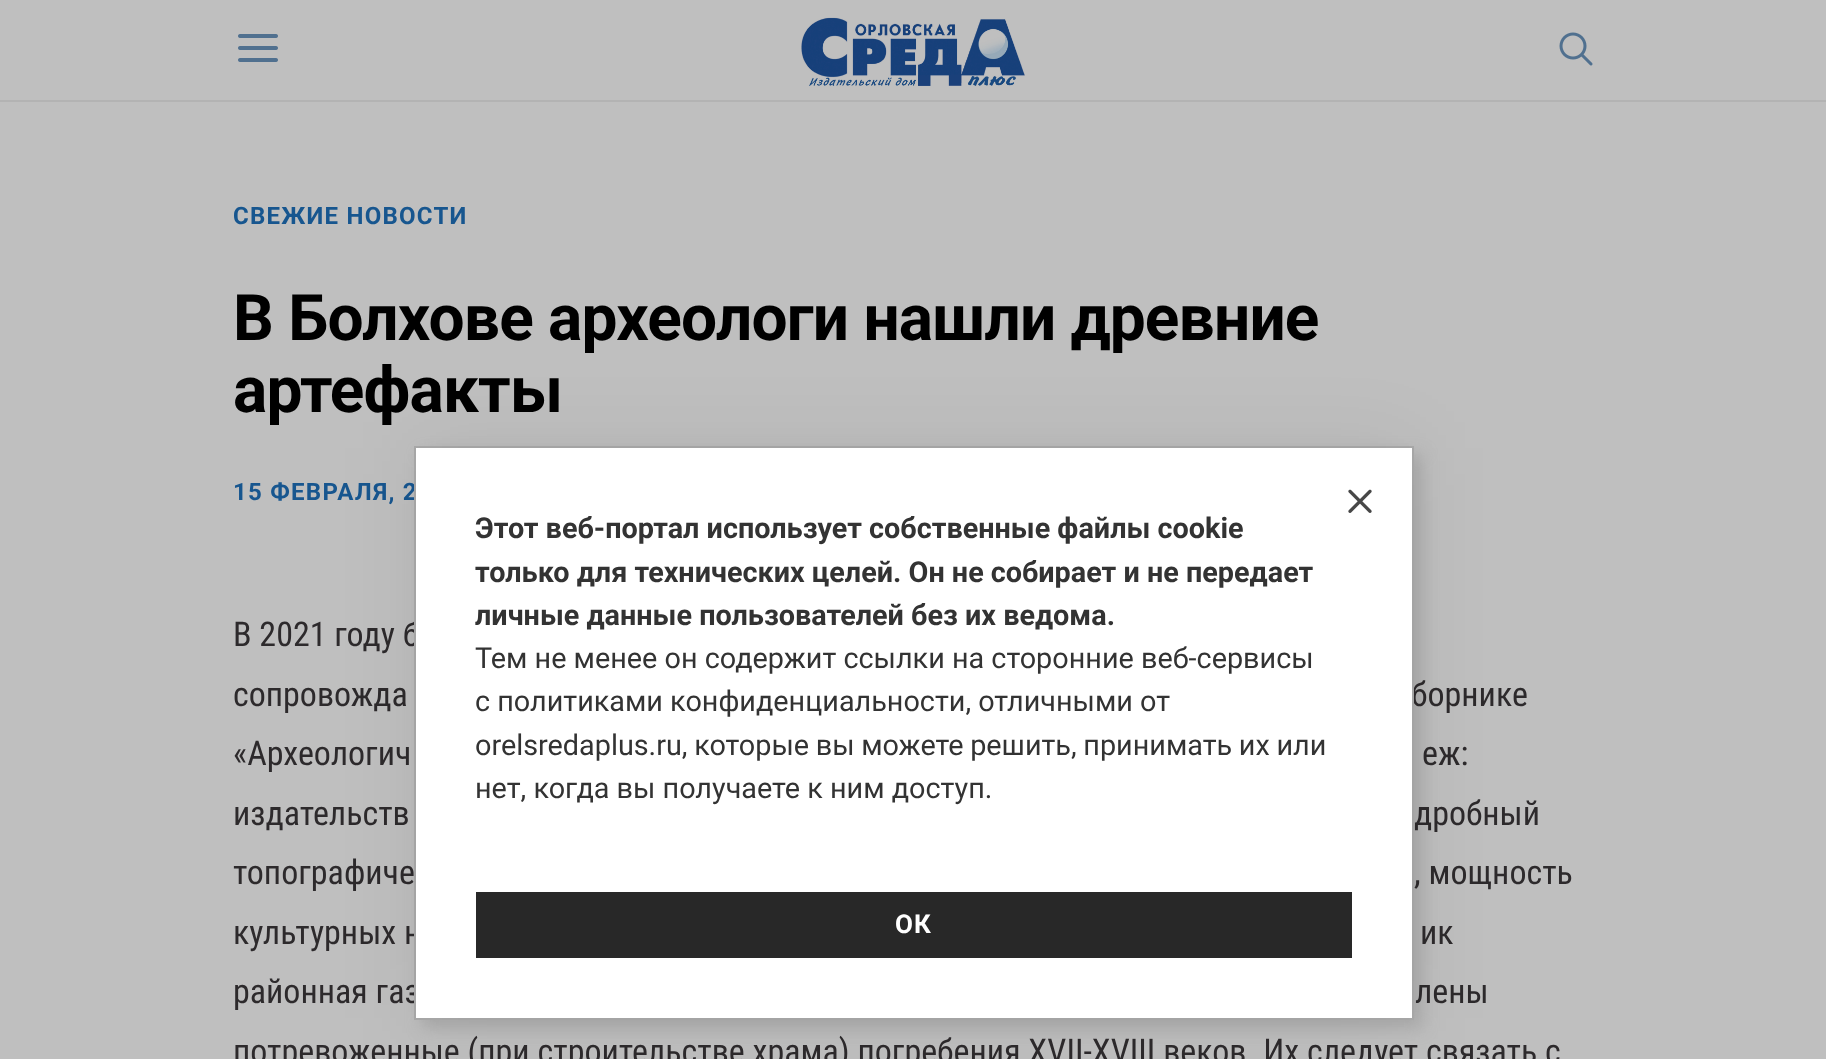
(async () => {
  const canvas = document.querySelector("canvas");
  canvas.width = 1826;
  canvas.height = 1059;
  const ctx = canvas.getContext("2d");
  ctx.miterLimit = 4;
  ctx.fontKerning = "normal";
  async function loadImage(src) {
    const img = new Image();
    img.src = src;
    await img.decode();
    return img;
  }

  ctx.fillStyle = "#bfbfbf";
  ctx.fillRect(0, 0, 1826, 1059);
  ctx.fillStyle = "#b3b3b3";
  ctx.fillRect(0, 100, 1826, 2);
  ctx.drawImage(await loadImage("img/1.png"), 238, 34, 40, 28);
  ctx.drawImage(await loadImage("img/2.png"), 801, 17, 224, 69);
  ctx.drawImage(await loadImage("img/3.png"), 1559, 32, 34, 34);
  ctx.fillStyle = "rgba(150, 150, 150, 0.5)";
  ctx.filter = "blur(8px)";
  ctx.beginPath();
  ctx.rect(422, 454, 1000, 574);
  ctx.fill();
  ctx.filter = "none";
  ctx.letterSpacing = "1.25px";
  ctx.font = "bold 24px Roboto";
  ctx.fillStyle = "#17568f";
  ctx.fillText("СВЕЖИЕ НОВОСТИ", 233, 224);
  ctx.letterSpacing = "-0.8px";
  ctx.font = "bold 64px Roboto";
  ctx.fillStyle = "#000000";
  ctx.fillText("В Болхове археологи нашли древние", 233, 340);
  ctx.fillText("артефакты", 233, 412);
  ctx.letterSpacing = "1.25px";
  ctx.font = "bold 24px Roboto";
  ctx.fillStyle = "#17568f";
  ctx.fillText("15 ФЕВРАЛЯ, 2", 233, 500);
  ctx.letterSpacing = "0px";
  ctx.font = "34px Roboto Condensed";
  ctx.fillStyle = "#2d2a2c";
  for (const [text, x, y] of [
    ["В 2021 году б", 233, 646],
    ["сопровожда", 233, 706],
    ["борнике", 1411, 706],
    ["«Археологич", 233, 765],
    ["еж:", 1422, 765],
    ["издательств", 233, 825],
    ["дробный", 1414, 825],
    ["топографиче", 233, 884],
    [", мощность", 1414, 884],
    ["культурных н", 233, 944],
    ["ик", 1420, 944],
    ["районная газ", 233, 1003],
    ["лены", 1415, 1003],
    ["потревоженные (при строительстве храма) погребения XVII-XVIII веков. Их следует связать с", 233, 1063],
  ]) {
    ctx.fillText(text, x, y);
  }
  ctx.strokeStyle = "#aaaaaa";
  ctx.lineWidth = 2;
  ctx.strokeRect(415, 447, 998, 572);
  ctx.fillStyle = "rgba(0, 0, 0, 0.07)";
  ctx.filter = "blur(40px)";
  ctx.beginPath();
  ctx.rect(416, 448, 996, 570);
  ctx.fill();
  ctx.filter = "none";
  ctx.fillStyle = "#ffffff";
  ctx.fillRect(416, 448, 996, 570);
  ctx.drawImage(await loadImage("img/4.png"), 1348, 489, 24, 24);
  ctx.font = "bold 28.8px Roboto";
  ctx.fillStyle = "#333333";
  for (const [text, x, y] of [
    ["Этот веб-портал использует собственные файлы cookie", 475, 538],
    ["только для технических целей. Он не собирает и не передает", 475, 582],
    ["личные данные пользователей без их ведома.", 475, 625],
  ]) {
    ctx.fillText(text, x, y);
  }
  ctx.font = "28.8px Roboto";
  ctx.fillText("Тем не менее он содержит ссылки на сторонние веб-сервисы", 475, 668);
  ctx.fillText("с политиками конфиденциальности, отличными от", 475, 711);
  ctx.wordSpacing = "-0.5px";
  ctx.fillText("orelsredaplus.ru, которые вы можете решить, принимать их или", 475, 755);
  ctx.wordSpacing = "0px";
  ctx.fillText("нет, когда вы получаете к ним доступ.", 475, 798);
  ctx.fillStyle = "#282828";
  ctx.fillRect(476, 892, 876, 66);
  ctx.letterSpacing = "1px";
  ctx.font = "bold 26px Roboto";
  ctx.fillStyle = "#ffffff";
  ctx.fillText("ОК", 895, 933);
})();
